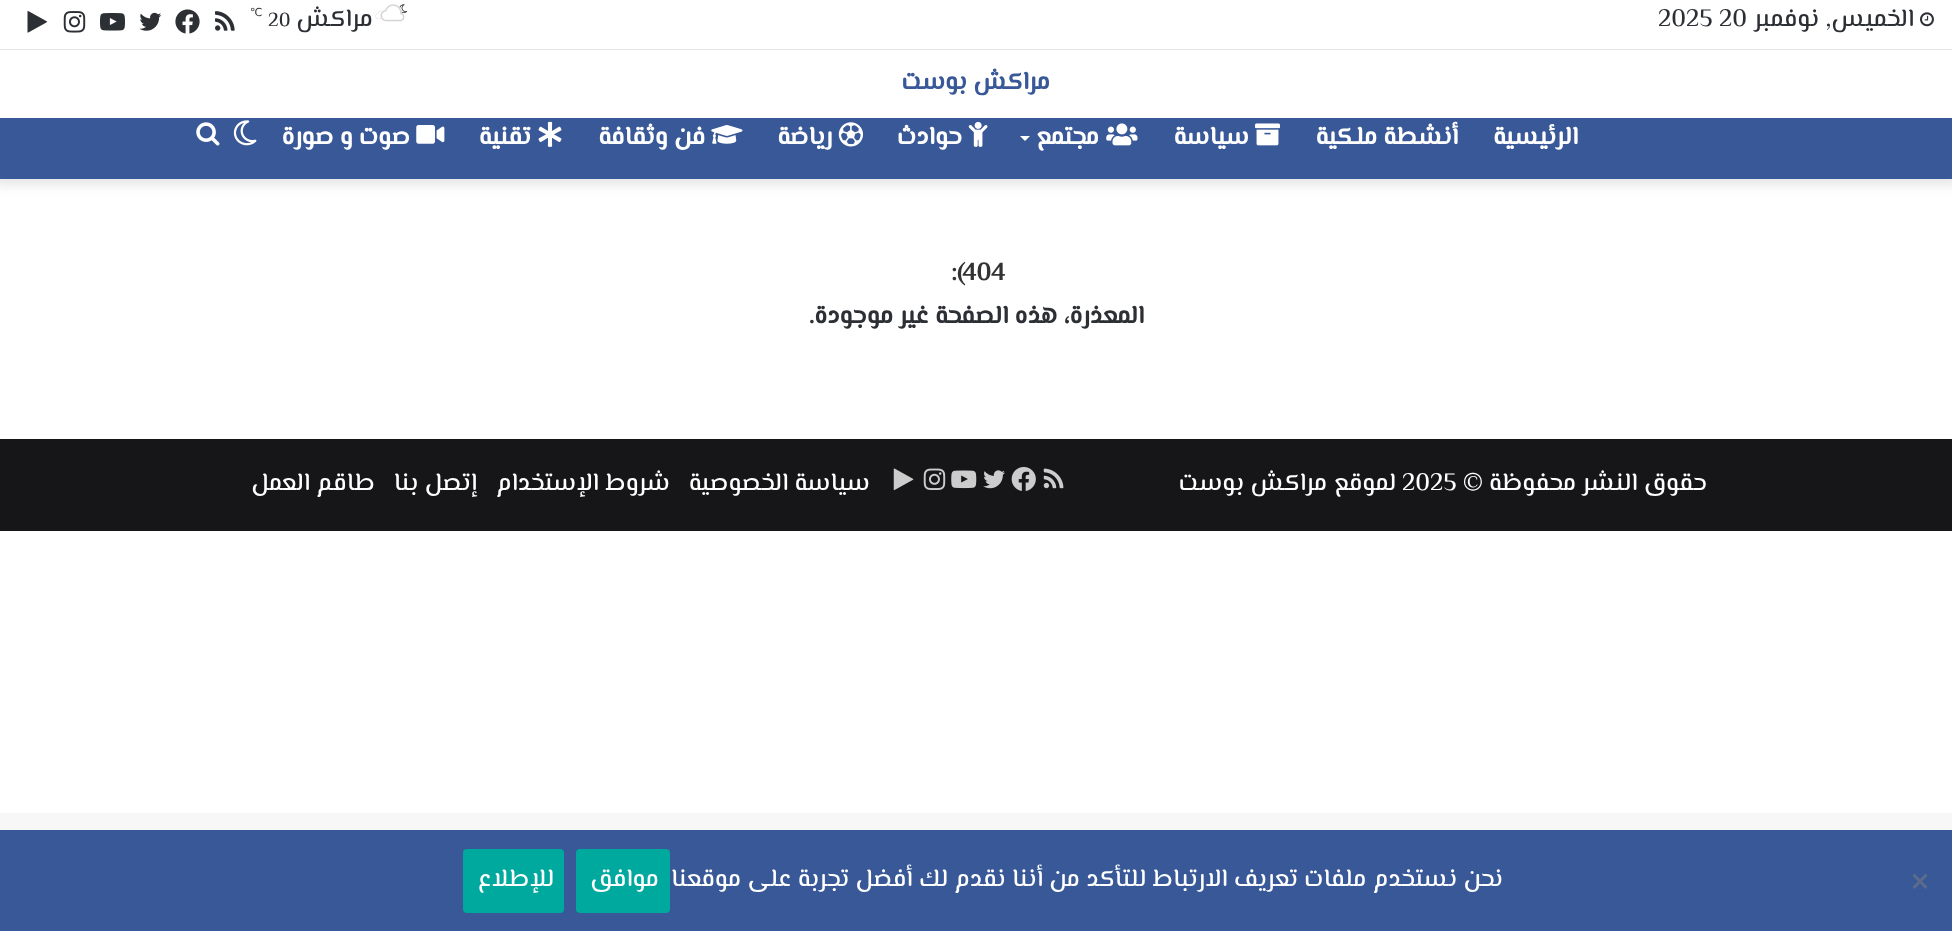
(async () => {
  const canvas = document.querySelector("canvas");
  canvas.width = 1952;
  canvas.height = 931;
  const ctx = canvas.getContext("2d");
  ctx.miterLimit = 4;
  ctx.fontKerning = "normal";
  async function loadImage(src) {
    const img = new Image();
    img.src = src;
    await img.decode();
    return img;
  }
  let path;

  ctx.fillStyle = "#f7f7f7";
  ctx.fillRect(0, 0, 1952, 931);
  ctx.fillStyle = "#ffffff";
  ctx.fillRect(0, 179, 1952, 634);
  ctx.fillStyle = "rgba(0, 0, 0, 0.1)";
  ctx.filter = "blur(6px)";
  ctx.beginPath();
  ctx.rect(-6, -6, 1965, 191);
  ctx.fill();
  ctx.filter = "none";
  ctx.fillStyle = "#ffffff";
  ctx.fillRect(0, 0, 1952, 118);
  ctx.fillStyle = "#e6e6e6";
  ctx.fillRect(0, 49, 1952, 1);
  ctx.drawImage(await loadImage("img/1.png"), 1920, 12, 14, 15);
  ctx.drawImage(await loadImage("img/3.png"), 399, 4, 9, 10);
  ctx.drawImage(await loadImage("img/5.png"), 375, 10, 8, 9);
  ctx.drawImage(await loadImage("img/4.png"), 381, 7, 21, 12);
  ctx.drawImage(await loadImage("img/2.png"), 380, 4, 25, 18);
  ctx.drawImage(await loadImage("img/6.png"), 215, 11, 20, 20);
  ctx.drawImage(await loadImage("img/7.png"), 175, 9, 25, 25);
  ctx.drawImage(await loadImage("img/8.png"), 139, 12, 23, 19);
  ctx.drawImage(await loadImage("img/9.png"), 100, 13, 25, 18);
  ctx.drawImage(await loadImage("img/10.png"), 63, 11, 23, 22);
  ctx.drawImage(await loadImage("img/11.png"), 27, 11, 21, 22);
  ctx.fillStyle = "#385898";
  ctx.fillRect(0, 118, 1952, 61);
  ctx.drawImage(await loadImage("img/12.png"), 1255, 123, 25, 23);
  ctx.drawImage(await loadImage("img/13.png"), 1106, 123, 32, 23);
  ctx.fillStyle = "#ffffff";
  path = new Path2D("M1020 136H1030L1025 141Z");
  ctx.fill(path);
  ctx.drawImage(await loadImage("img/14.png"), 968, 121, 20, 26);
  ctx.drawImage(await loadImage("img/15.png"), 838, 122, 25, 25);
  ctx.drawImage(await loadImage("img/16.png"), 711, 125, 32, 19);
  ctx.drawImage(await loadImage("img/17.png"), 538, 121, 24, 26);
  ctx.drawImage(await loadImage("img/18.png"), 416, 125, 29, 19);
  ctx.drawImage(await loadImage("img/19.png"), 233, 120, 24, 26);
  ctx.drawImage(await loadImage("img/20.png"), 196, 122, 24, 24);
  ctx.fillStyle = "#161619";
  ctx.fillRect(0, 439, 1952, 92);
  ctx.drawImage(await loadImage("img/21.png"), 1043, 468, 21, 21);
  ctx.drawImage(await loadImage("img/22.png"), 1011, 467, 25, 24);
  ctx.drawImage(await loadImage("img/23.png"), 983, 470, 22, 19);
  ctx.drawImage(await loadImage("img/24.png"), 951, 470, 26, 19);
  ctx.drawImage(await loadImage("img/25.png"), 923, 468, 23, 22);
  ctx.drawImage(await loadImage("img/26.png"), 893, 468, 21, 23);
  ctx.fillStyle = "#385898";
  ctx.fillRect(0, 830, 1952, 101);
  ctx.fillStyle = "#5c6c8c";
  path = new Path2D("M1925.5 873.5L1927.5 875.5L1914.5 889L1912.5 887Z");
  ctx.fill(path);
  path = new Path2D("M1912.5 875.5L1914.5 873.5L1927.5 887L1925.5 889Z");
  ctx.fill(path);
  ctx.fillStyle = "#00a99d";
  ctx.beginPath();
  ctx.roundRect(576, 849, 94, 64, 4);
  ctx.fill();
  ctx.beginPath();
  ctx.roundRect(463, 849, 101, 64, 4);
  ctx.fill();
  ctx.direction = "rtl";
  ctx.font = "500 25px El Messiri";
  ctx.fillStyle = "#2c2f34";
  ctx.fillText("الخميس, نوفمبر", 1914, 26);
  ctx.direction = "ltr";
  ctx.fillText("2025 20", 1658, 26);
  ctx.direction = "rtl";
  ctx.fillText("مراكش", 373, 26);
  ctx.direction = "ltr";
  ctx.font = "500 20px El Messiri";
  ctx.fillText("20", 268, 26);
  ctx.font = "11px DejaVu Sans";
  ctx.fillText("℃", 250, 16);
  ctx.direction = "rtl";
  ctx.font = "bold 25px El Messiri";
  ctx.fillStyle = "#385898";
  ctx.fillText("مراكش بوست", 1050, 89);
  ctx.fillStyle = "#ffffff";
  for (const [text, x, y] of [
    ["الرئيسية", 1578, 144],
    ["أنشطة ملكية", 1458, 144],
    ["سياسة", 1249, 144],
    ["مجتمع", 1099, 144],
    ["حوادث", 962, 144],
    ["رياضة", 832, 144],
    ["فن وثقافة", 705, 144],
    ["تقنية", 531, 144],
    ["صوت و صورة", 410, 144],
  ]) {
    ctx.fillText(text, x, y);
  }
  ctx.direction = "ltr";
  ctx.fillStyle = "#333333";
  ctx.fillText(":(404", 951, 280);
  ctx.direction = "rtl";
  ctx.fillStyle = "#2c2f34";
  ctx.fillText("المعذرة، هذه الصفحة غير موجودة.", 1144, 323);
  ctx.font = "500 25px El Messiri";
  ctx.fillStyle = "#ffffff";
  ctx.fillText("حقوق النشر محفوظة ©", 1707, 490);
  ctx.direction = "ltr";
  ctx.fillText("2025", 1402, 490);
  ctx.direction = "rtl";
  for (const [text, x, y] of [
    ["لموقع مراكش بوست", 1396, 490],
    ["سياسة الخصوصية", 870, 490],
    ["شروط الإستخدام", 670, 490],
    ["إتصل بنا", 477, 490],
    ["طاقم العمل", 375, 490],
    ["نحن نستخدم ملفات تعريف الارتباط للتأكد من أننا نقدم لك أفضل تجربة على موقعنا", 1503, 886],
  ]) {
    ctx.fillText(text, x, y);
  }
  ctx.letterSpacing = "0.25px";
  ctx.fillText("موافق", 659, 886);
  ctx.fillText("للإطلاع", 554, 886);
})();
